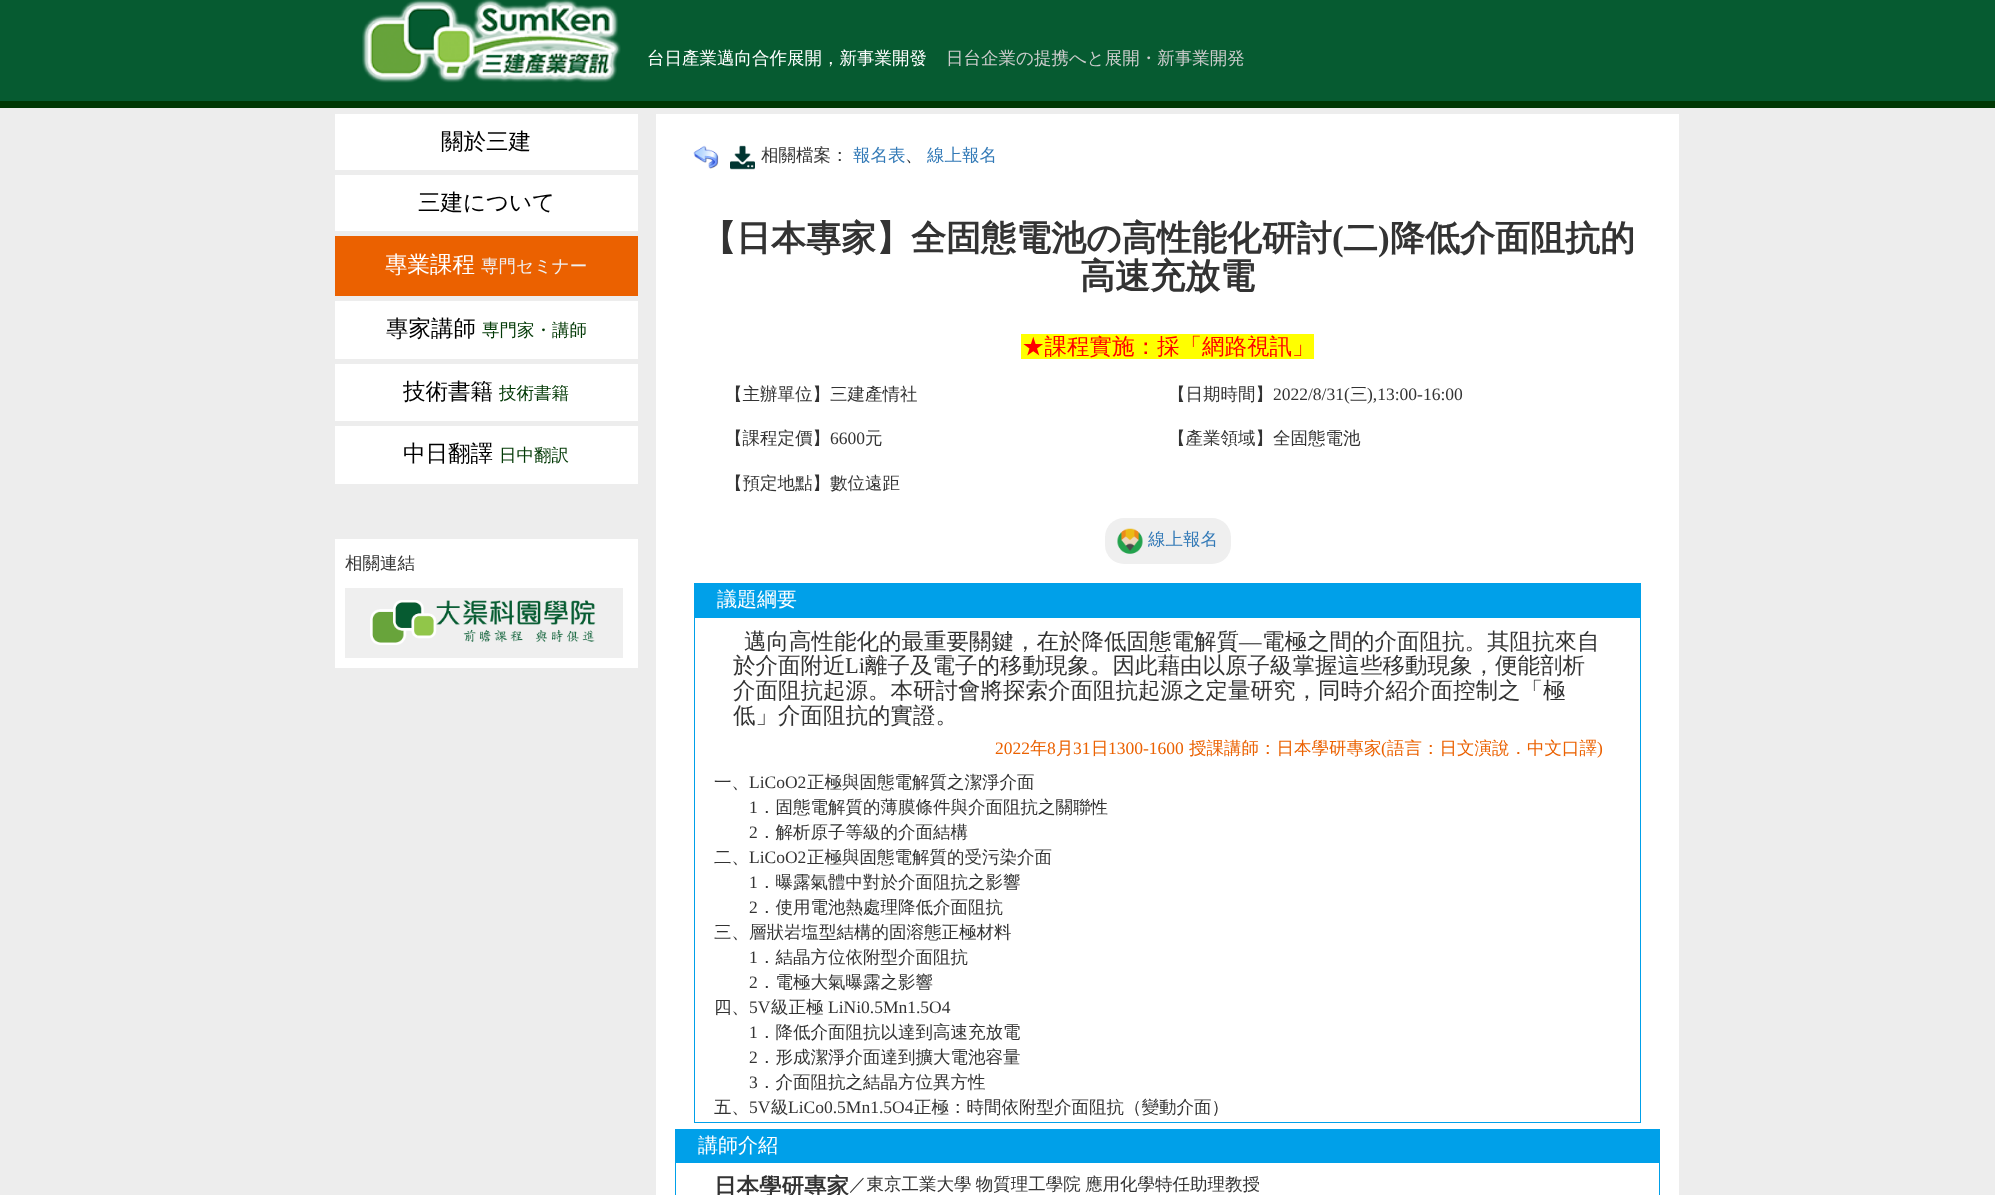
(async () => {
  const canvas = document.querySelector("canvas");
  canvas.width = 1995;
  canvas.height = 1195;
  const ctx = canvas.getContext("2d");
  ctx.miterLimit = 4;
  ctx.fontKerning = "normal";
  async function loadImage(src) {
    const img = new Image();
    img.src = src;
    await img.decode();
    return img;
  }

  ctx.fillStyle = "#ededed";
  ctx.fillRect(0, 0, 1995, 1195);
  ctx.fillStyle = "#065b31";
  ctx.fillRect(0, 0, 1995, 101);
  ctx.fillStyle = "#003804";
  ctx.fillRect(0, 101, 1995, 7);
  ctx.drawImage(await loadImage("img/1.png"), 362, 0, 259, 83);
  for (const [x, y, w, h, color] of [
    [335, 114, 303, 56, "#ffffff"],
    [335, 175, 303, 56, "#ffffff"],
    [335, 236, 303, 60, "#eb6100"],
    [335, 301, 303, 58, "#ffffff"],
    [335, 364, 303, 57, "#ffffff"],
    [335, 426, 303, 58, "#ffffff"],
    [335, 539, 303, 129, "#ffffff"],
    [345, 588, 278, 70, "#efefef"],
  ]) {
    ctx.fillStyle = color;
    ctx.fillRect(x, y, w, h);
  }
  ctx.drawImage(await loadImage("img/2.png"), 370, 600, 226, 45);
  ctx.fillStyle = "#ffffff";
  ctx.fillRect(656, 114, 1023, 1081);
  ctx.drawImage(await loadImage("img/3.png"), 693, 145, 26, 24);
  ctx.drawImage(await loadImage("img/4.png"), 730, 145, 25, 25);
  ctx.fillStyle = "#ffff00";
  ctx.fillRect(1021, 334, 293, 25);
  ctx.fillStyle = "#efefef";
  ctx.beginPath();
  ctx.roundRect(1105, 518, 126, 46, 19);
  ctx.fill();
  ctx.drawImage(await loadImage("img/5.png"), 1117, 528, 26, 26);
  ctx.strokeStyle = "#00a0e9";
  ctx.strokeRect(694.5, 583.5, 946, 539);
  ctx.fillStyle = "#00a0e9";
  ctx.fillRect(695, 584, 945, 34);
  ctx.strokeRect(675.5, 1129.5, 984, 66);
  ctx.fillRect(676, 1130, 983, 33);
  ctx.font = "500 17.5px WenQuanYi Zen Hei";
  ctx.fillStyle = "#ffffff";
  ctx.fillText("台日產業邁向合作展開，新事業開發", 647, 64);
  ctx.fillStyle = "#cccccc";
  ctx.fillText("日台企業の提携へと展開・新事業開発", 946, 64);
  ctx.font = "500 22.5px WenQuanYi Zen Hei";
  ctx.fillStyle = "#000000";
  ctx.fillText("關於三建", 441, 149);
  ctx.fillText("三建について", 418, 210);
  ctx.fillStyle = "#ffffff";
  ctx.fillText("專業課程", 385, 272);
  ctx.font = "500 17.5px WenQuanYi Zen Hei";
  ctx.fillStyle = "#efefef";
  ctx.fillText("専門セミナー", 481, 272);
  ctx.font = "500 22.5px WenQuanYi Zen Hei";
  ctx.fillStyle = "#000000";
  ctx.fillText("專家講師", 386, 336);
  ctx.font = "500 17.5px WenQuanYi Zen Hei";
  ctx.fillStyle = "#003804";
  ctx.fillText("専門家・講師", 482, 336);
  ctx.font = "500 22.5px WenQuanYi Zen Hei";
  ctx.fillStyle = "#000000";
  ctx.fillText("技術書籍", 403, 399);
  ctx.font = "500 17.5px WenQuanYi Zen Hei";
  ctx.fillStyle = "#003804";
  ctx.fillText("技術書籍", 499, 399);
  ctx.font = "500 22.5px WenQuanYi Zen Hei";
  ctx.fillStyle = "#000000";
  ctx.fillText("中日翻譯", 403, 461);
  ctx.font = "500 17.5px WenQuanYi Zen Hei";
  ctx.fillStyle = "#003804";
  ctx.fillText("日中翻訳", 499, 461);
  ctx.fillStyle = "#333333";
  ctx.fillText("相關連結", 345, 569);
  ctx.fillText("相關檔案：", 761, 161);
  ctx.fillStyle = "#337ab7";
  ctx.fillText("報名表", 853, 161);
  ctx.fillStyle = "#333333";
  ctx.fillText("、", 905, 161);
  ctx.fillStyle = "#337ab7";
  ctx.fillText("線上報名", 927, 161);
  ctx.font = "bold 35px WenQuanYi Zen Hei";
  ctx.fillStyle = "#333333";
  ctx.fillText("【日本專家】全固態電池の高性能化研討", 701, 250);
  ctx.font = "bold 35px Liberation Serif";
  ctx.fillText("(", 1332, 250);
  ctx.font = "bold 35px WenQuanYi Zen Hei";
  ctx.fillText("二", 1343, 250);
  ctx.font = "bold 35px Liberation Serif";
  ctx.fillText(")", 1378, 250);
  ctx.font = "bold 35px WenQuanYi Zen Hei";
  ctx.fillText("降低介面阻抗的", 1390, 250);
  ctx.fillText("高速充放電", 1080, 288);
  ctx.font = "500 22.5px WenQuanYi Zen Hei";
  ctx.fillStyle = "#ff0000";
  ctx.fillText("★課程實施：採「網路視訊」", 1022, 354);
  ctx.font = "500 17.5px WenQuanYi Zen Hei";
  ctx.fillStyle = "#333333";
  ctx.fillText("【主辦單位】三建產情社", 725, 400);
  ctx.fillText("【日期時間】", 1168, 400);
  ctx.font = "17.5px Liberation Serif";
  ctx.fillText("2022/8/31(", 1273, 400);
  ctx.font = "500 17.5px WenQuanYi Zen Hei";
  ctx.fillText("三", 1350, 400);
  ctx.font = "17.5px Liberation Serif";
  ctx.fillText("),13:00-16:00", 1367, 400);
  ctx.font = "500 17.5px WenQuanYi Zen Hei";
  ctx.fillText("【課程定價】", 725, 444);
  ctx.font = "17.5px Liberation Serif";
  ctx.fillText("6600", 830, 444);
  ctx.font = "500 17.5px WenQuanYi Zen Hei";
  for (const [text, x, y] of [
    ["元", 865, 444],
    ["【產業領域】全固態電池", 1168, 444],
    ["【預定地點】數位遠距", 725, 489],
  ]) {
    ctx.fillText(text, x, y);
  }
  ctx.fillStyle = "#337ab7";
  ctx.fillText("線上報名", 1148, 545);
  ctx.font = "500 20px WenQuanYi Zen Hei";
  ctx.fillStyle = "#ffffff";
  ctx.fillText("議題綱要", 717, 606);
  ctx.font = "500 22.5px WenQuanYi Zen Hei";
  ctx.fillStyle = "#333333";
  ctx.fillText("邁向高性能化的最重要關鍵，在於降低固態電解質", 744, 649);
  ctx.font = "22.5px Liberation Serif";
  ctx.fillText("―", 1239, 649);
  ctx.font = "500 22.5px WenQuanYi Zen Hei";
  ctx.fillText("電極之間的介面阻抗。其阻抗來自", 1262, 649);
  ctx.fillText("於介面附近", 733, 673);
  ctx.font = "22.5px Liberation Serif";
  ctx.fillText("Li", 845, 673);
  ctx.font = "500 22.5px WenQuanYi Zen Hei";
  for (const [text, x, y] of [
    ["離子及電子的移動現象。因此藉由以原子級掌握這些移動現象，便能剖析", 865, 673],
    ["介面阻抗起源。本研討會將探索介面阻抗起源之定量研究，同時介紹介面控制之「極", 733, 698],
    ["低」介面阻抗的實證。", 733, 723],
  ]) {
    ctx.fillText(text, x, y);
  }
  ctx.font = "17.5px Liberation Serif";
  ctx.fillStyle = "#eb6100";
  ctx.fillText("2022", 995, 754);
  ctx.font = "500 17.5px WenQuanYi Zen Hei";
  ctx.fillText("年", 1030, 754);
  ctx.font = "17.5px Liberation Serif";
  ctx.fillText("8", 1047, 754);
  ctx.font = "500 17.5px WenQuanYi Zen Hei";
  ctx.fillText("月", 1056, 754);
  ctx.font = "17.5px Liberation Serif";
  ctx.fillText("31", 1073, 754);
  ctx.font = "500 17.5px WenQuanYi Zen Hei";
  ctx.fillText("日", 1091, 754);
  ctx.font = "17.5px Liberation Serif";
  ctx.fillText("1300-1600", 1108, 754);
  ctx.font = "500 17.5px WenQuanYi Zen Hei";
  ctx.fillText("授課講師：日本學研專家", 1189, 754);
  ctx.font = "17.5px Liberation Serif";
  ctx.fillText("(", 1381, 754);
  ctx.font = "500 17.5px WenQuanYi Zen Hei";
  ctx.fillText("語言：日文演說．中文口譯", 1387, 754);
  ctx.font = "17.5px Liberation Serif";
  ctx.fillText(")", 1597, 754);
  ctx.font = "500 17.5px WenQuanYi Zen Hei";
  ctx.fillStyle = "#333333";
  ctx.fillText("一、", 714, 788);
  ctx.font = "17.5px Liberation Serif";
  ctx.fillText("LiCoO2", 749, 788);
  ctx.font = "500 17.5px WenQuanYi Zen Hei";
  ctx.fillText("正極與固態電解質之潔淨介面", 807, 788);
  ctx.font = "17.5px Liberation Serif";
  ctx.fillText("1", 749, 813);
  ctx.font = "500 17.5px WenQuanYi Zen Hei";
  ctx.fillText("．固態電解質的薄膜條件與介面阻抗之關聯性", 758, 813);
  ctx.font = "17.5px Liberation Serif";
  ctx.fillText("2", 749, 838);
  ctx.font = "500 17.5px WenQuanYi Zen Hei";
  ctx.fillText("．解析原子等級的介面結構", 758, 838);
  ctx.fillText("二、", 714, 863);
  ctx.font = "17.5px Liberation Serif";
  ctx.fillText("LiCoO2", 749, 863);
  ctx.font = "500 17.5px WenQuanYi Zen Hei";
  ctx.fillText("正極與固態電解質的受污染介面", 807, 863);
  ctx.font = "17.5px Liberation Serif";
  ctx.fillText("1", 749, 888);
  ctx.font = "500 17.5px WenQuanYi Zen Hei";
  ctx.fillText("．曝露氣體中對於介面阻抗之影響", 758, 888);
  ctx.font = "17.5px Liberation Serif";
  ctx.fillText("2", 749, 913);
  ctx.font = "500 17.5px WenQuanYi Zen Hei";
  ctx.fillText("．使用電池熱處理降低介面阻抗", 758, 913);
  ctx.fillText("三、層狀岩塩型結構的固溶態正極材料", 714, 938);
  ctx.font = "17.5px Liberation Serif";
  ctx.fillText("1", 749, 963);
  ctx.font = "500 17.5px WenQuanYi Zen Hei";
  ctx.fillText("．結晶方位依附型介面阻抗", 758, 963);
  ctx.font = "17.5px Liberation Serif";
  ctx.fillText("2", 749, 988);
  ctx.font = "500 17.5px WenQuanYi Zen Hei";
  ctx.fillText("．電極大氣曝露之影響", 758, 988);
  ctx.fillText("四、", 714, 1013);
  ctx.font = "17.5px Liberation Serif";
  ctx.fillText("5V", 749, 1013);
  ctx.font = "500 17.5px WenQuanYi Zen Hei";
  ctx.fillText("級正極", 771, 1013);
  ctx.font = "17.5px Liberation Serif";
  ctx.fillText("LiNi0.5Mn1.5O4", 828, 1013);
  ctx.fillText("1", 749, 1038);
  ctx.font = "500 17.5px WenQuanYi Zen Hei";
  ctx.fillText("．降低介面阻抗以達到高速充放電", 758, 1038);
  ctx.font = "17.5px Liberation Serif";
  ctx.fillText("2", 749, 1063);
  ctx.font = "500 17.5px WenQuanYi Zen Hei";
  ctx.fillText("．形成潔淨介面達到擴大電池容量", 758, 1063);
  ctx.font = "17.5px Liberation Serif";
  ctx.fillText("3", 749, 1088);
  ctx.font = "500 17.5px WenQuanYi Zen Hei";
  ctx.fillText("．介面阻抗之結晶方位異方性", 758, 1088);
  ctx.fillText("五、", 714, 1113);
  ctx.font = "17.5px Liberation Serif";
  ctx.fillText("5V", 749, 1113);
  ctx.font = "500 17.5px WenQuanYi Zen Hei";
  ctx.fillText("級", 771, 1113);
  ctx.font = "17.5px Liberation Serif";
  ctx.fillText("LiCo0.5Mn1.5O4", 788, 1113);
  ctx.font = "500 17.5px WenQuanYi Zen Hei";
  ctx.fillText("正極：時間依附型介面阻抗（變動介面）", 914, 1113);
  ctx.font = "500 20px WenQuanYi Zen Hei";
  ctx.fillStyle = "#ffffff";
  ctx.fillText("講師介紹", 698, 1152);
  ctx.font = "bold 22.5px WenQuanYi Zen Hei";
  ctx.fillStyle = "#333333";
  ctx.fillText("日本學研專家", 714, 1194);
  ctx.wordSpacing = "-1px";
  ctx.font = "500 17.5px WenQuanYi Zen Hei";
  ctx.fillText("／東京工業大學 物質理工學院 應用化學特任助理教授", 849, 1190);
})();
